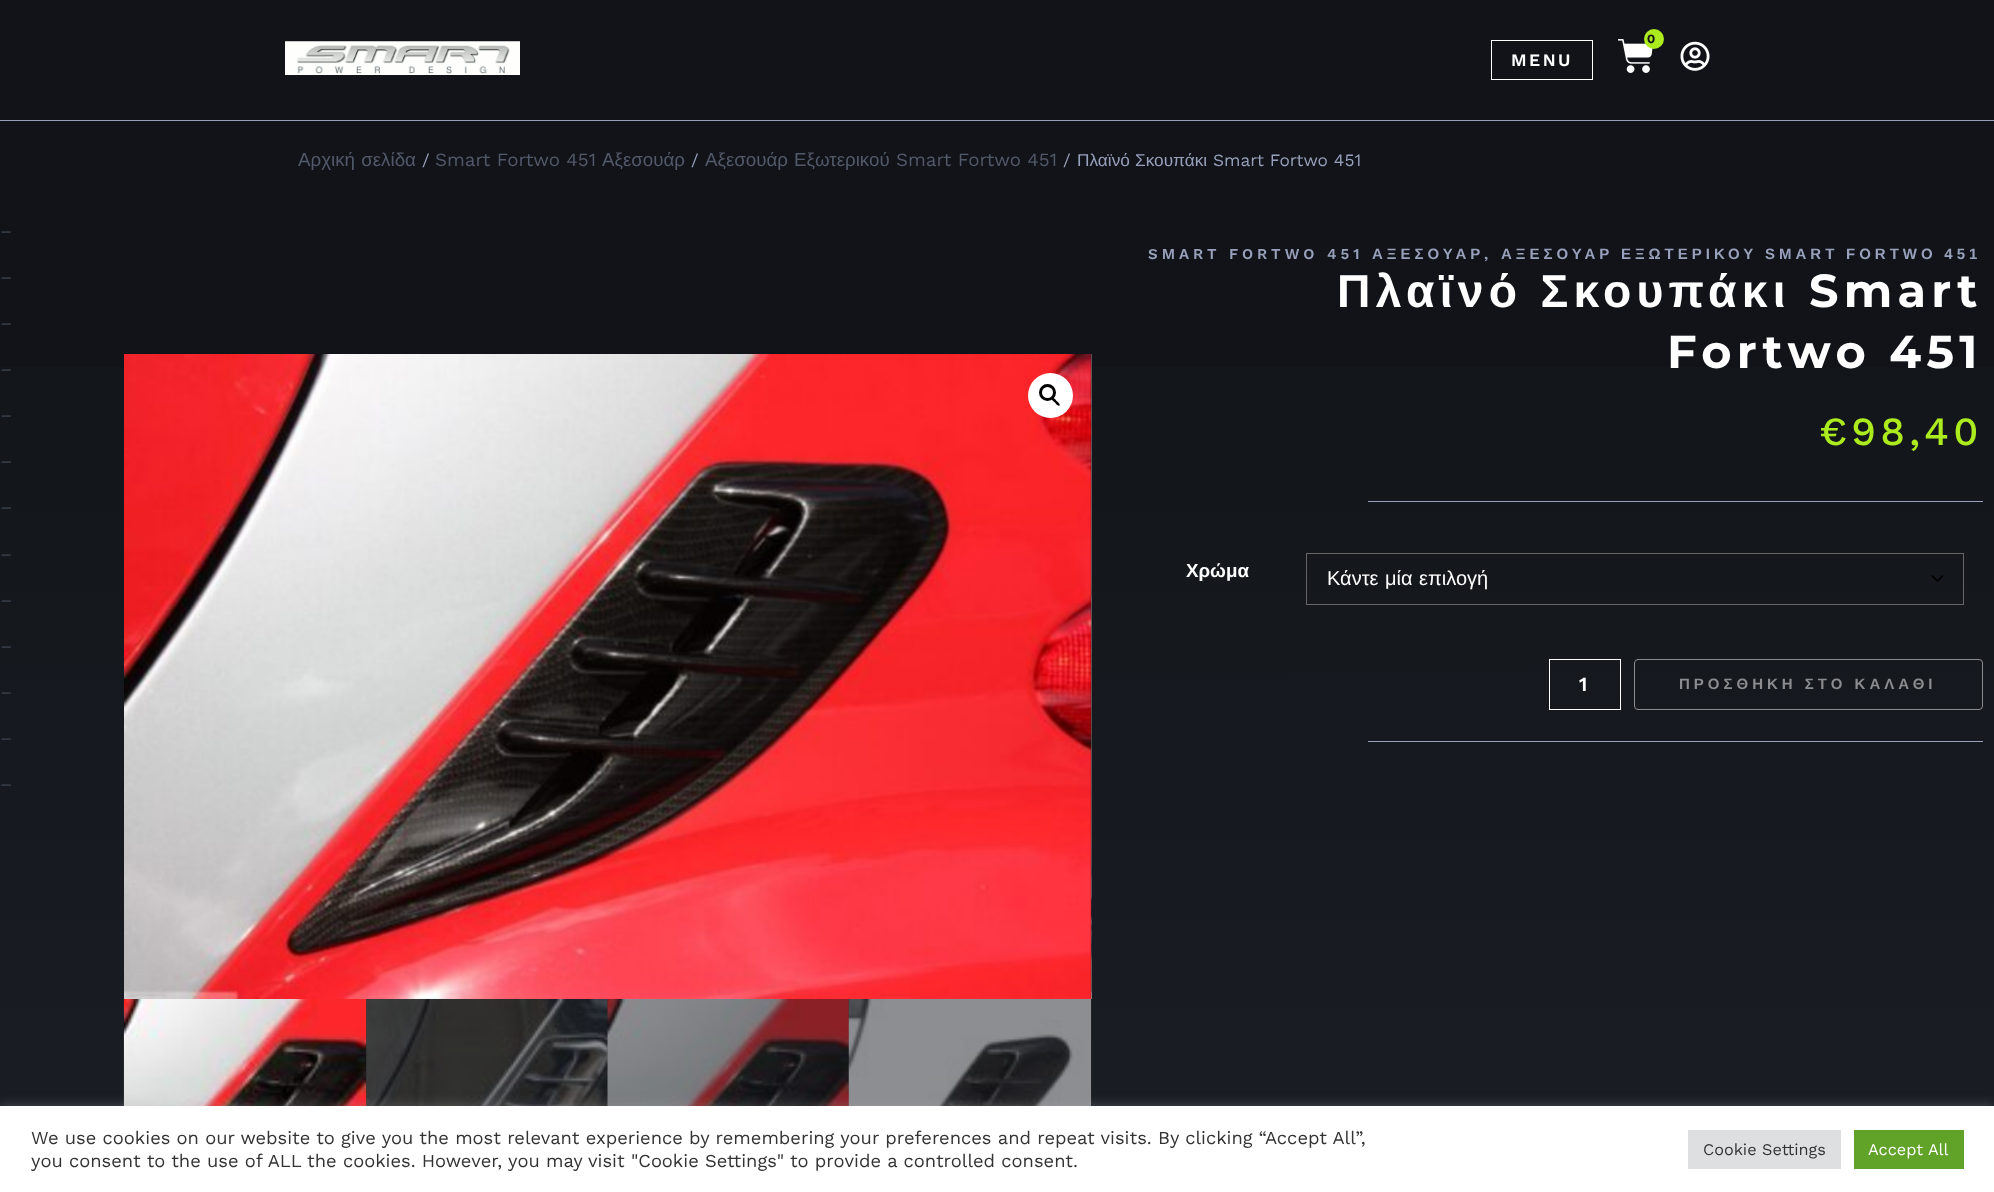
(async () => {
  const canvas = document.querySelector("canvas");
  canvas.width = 1994;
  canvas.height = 1192;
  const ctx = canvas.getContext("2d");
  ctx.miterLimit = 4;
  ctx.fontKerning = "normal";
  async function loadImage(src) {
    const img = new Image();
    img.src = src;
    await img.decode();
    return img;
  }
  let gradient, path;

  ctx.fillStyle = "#111318";
  ctx.fillRect(0, 0, 1994, 1192);
  ctx.drawImage(await loadImage("img/1.png"), 285, 41, 235, 34);
  ctx.drawImage(await loadImage("img/2.png"), 1618, 39, 35, 34);
  ctx.fillStyle = "#aceb1e";
  ctx.beginPath();
  ctx.arc(1654, 39, 10, 0, Math.PI * 2);
  ctx.fill();
  ctx.strokeStyle = "#ffffff";
  ctx.strokeRect(1491.5, 40.5, 101, 39);
  ctx.drawImage(await loadImage("img/3.png"), 1680, 41, 30, 30);
  ctx.fillStyle = "#98a1bc";
  ctx.fillRect(0, 120, 1994, 1);
  gradient = ctx.createLinearGradient(997, 216, 998, 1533);
  gradient.addColorStop(0, "#111418");
  gradient.addColorStop(1, "#1d2129");
  ctx.fillStyle = gradient;
  ctx.fillRect(0, 367, 1994, 739);
  ctx.drawImage(await loadImage("img/4.png"), 124, 354, 968, 645);
  ctx.drawImage(await loadImage("img/5.png"), 1091, 354, 1, 645);
  ctx.fillStyle = "#ffffff";
  ctx.beginPath();
  ctx.arc(1050.5, 395.5, 22.5, 0, Math.PI * 2);
  ctx.fill();
  ctx.beginPath();
  ctx.arc(1047.5, 392.5, 7, 0, Math.PI * 2);
  ctx.strokeStyle = "#000000";
  ctx.lineWidth = 3;
  ctx.stroke();
  ctx.fillStyle = "#000000";
  path = new Path2D("M1052 398C1053.5 397 1056 400 1056.5 401C1057.5 401.5 1060.5 404 1059.5 405.5C1058 406.5 1055.5 403.5 1055 402.5C1054 402 1051 399.5 1052 398Z");
  ctx.fill(path);
  ctx.drawImage(await loadImage("img/6.png"), 123, 999, 244, 107);
  ctx.drawImage(await loadImage("img/7.png"), 366, 998, 242, 108);
  ctx.drawImage(await loadImage("img/8.png"), 607, 998, 242, 108);
  ctx.drawImage(await loadImage("img/9.png"), 848, 998, 244, 108);
  ctx.fillStyle = "#98a1bc";
  ctx.fillRect(1368, 501, 615, 1);
  path = new Path2D("M1932.5 576L1937.5 581L1942.5 576");
  ctx.lineWidth = 1.7;
  ctx.lineCap = "round";
  ctx.lineJoin = "round";
  ctx.stroke(path);
  ctx.strokeStyle = "#666666";
  ctx.lineWidth = 1;
  ctx.lineJoin = "miter";
  ctx.strokeRect(1306.5, 553.5, 657, 51);
  ctx.strokeStyle = "#ffffff";
  ctx.strokeRect(1549.5, 659.5, 71, 50);
  ctx.beginPath();
  ctx.roundRect(1634.5, 659.5, 348, 50, 3.5);
  ctx.strokeStyle = "#8a8c8f";
  ctx.stroke();
  ctx.fillRect(1368, 741, 615, 1);
  ctx.fillStyle = "rgba(172, 171, 171, 0.3)";
  ctx.filter = "blur(6px)";
  ctx.beginPath();
  ctx.rect(0, 1105, 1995, 86);
  ctx.fill();
  ctx.filter = "none";
  for (const [x, y, w, h, color] of [
    [0, 1106, 1994, 86, "#ffffff"],
    [1688, 1130, 153, 39, "#dedfe0"],
    [1854, 1130, 110, 39, "#61a229"],
  ]) {
    ctx.fillStyle = color;
    ctx.fillRect(x, y, w, h);
  }
  ctx.letterSpacing = "5.25px";
  ctx.font = "bold 12px Montserrat";
  ctx.fillStyle = "#111318";
  ctx.fillText("0", 1647, 43);
  ctx.letterSpacing = "2.5px";
  ctx.font = "600 17.5px Work Sans";
  ctx.fillStyle = "#ffffff";
  ctx.fillText("MENU", 1511, 66);
  ctx.letterSpacing = "0px";
  ctx.wordSpacing = "1px";
  ctx.font = "18.75px Liberation Sans";
  ctx.fillStyle = "#52596a";
  ctx.fillText("Αρχική σελίδα", 298, 166);
  ctx.wordSpacing = "0px";
  ctx.font = "17.25px Work Sans";
  ctx.fillStyle = "#98a1bc";
  ctx.fillText("/", 422, 166);
  ctx.font = "18.75px Work Sans";
  ctx.fillStyle = "#52596a";
  ctx.fillText("Smart Fortwo 451", 435, 166);
  ctx.font = "18.75px Liberation Sans";
  ctx.fillText("Αξεσουάρ", 602, 166);
  ctx.font = "17.25px Work Sans";
  ctx.fillStyle = "#98a1bc";
  ctx.fillText("/", 691, 166);
  ctx.font = "18.75px Liberation Sans";
  ctx.fillStyle = "#52596a";
  ctx.fillText("Αξεσουάρ", 705, 166);
  ctx.fillText("Εξωτερικού", 794, 166);
  ctx.font = "18.75px Work Sans";
  ctx.fillText("Smart Fortwo 451", 896, 166);
  ctx.font = "17.25px Work Sans";
  ctx.fillStyle = "#98a1bc";
  ctx.fillText("/", 1063, 166);
  ctx.font = "17.25px Liberation Sans";
  ctx.fillText("Πλαϊνό", 1077, 166);
  ctx.fillText("Σκουπάκι", 1135, 166);
  ctx.font = "17.25px Work Sans";
  ctx.fillText("Smart Fortwo 451", 1213, 166);
  ctx.font = "18.75px Work Sans";
  ctx.fillStyle = "#39414e";
  for (const [text, x, y] of [
    ["–", 0, 237],
    ["–", 0, 283],
    ["–", 0, 329],
    ["–", 0, 375],
    ["–", 0, 421],
    ["–", 0, 467],
    ["–", 0, 513],
    ["–", 0, 560],
    ["–", 0, 606],
    ["–", 0, 652],
    ["–", 0, 698],
    ["–", 0, 744],
    ["–", 0, 790],
  ]) {
    ctx.fillText(text, x, y);
  }
  ctx.letterSpacing = "4px";
  ctx.font = "600 15px Work Sans";
  ctx.fillStyle = "#98a1bc";
  ctx.fillText("SMART FORTWO 451", 1148, 259);
  ctx.font = "bold 15px Liberation Sans";
  ctx.fillText("ΑΞΕΣΟΥΑΡ", 1372, 259);
  ctx.font = "600 15px Work Sans";
  ctx.fillText(",", 1484, 259);
  ctx.wordSpacing = "-0.5px";
  ctx.font = "bold 15px Liberation Sans";
  ctx.fillText("ΑΞΕΣΟΥΑΡ ΕΞΩΤΕΡΙΚΟΥ SMART FORTWO 451", 1501, 259);
  ctx.letterSpacing = "5.25px";
  ctx.wordSpacing = "0px";
  ctx.font = "bold 46.25px Liberation Sans";
  ctx.fillStyle = "#ffffff";
  ctx.fillText("Πλαϊνό Σκουπάκι", 1337, 307);
  ctx.font = "bold 46.25px Montserrat";
  ctx.fillText("Smart", 1809, 307);
  ctx.fillText("Fortwo 451", 1667, 368);
  ctx.letterSpacing = "4.25px";
  ctx.font = "500 40px Work Sans";
  ctx.fillStyle = "#aceb1e";
  ctx.fillText("€98,40", 1819, 445);
  ctx.letterSpacing = "0px";
  ctx.font = "bold 18.75px Liberation Sans";
  ctx.fillStyle = "#ffffff";
  ctx.fillText("Χρώμα", 1186, 577);
  ctx.wordSpacing = "1px";
  ctx.font = "20px Liberation Sans";
  ctx.fillText("Κάντε μία επιλογή", 1327, 585);
  ctx.letterSpacing = "1px";
  ctx.wordSpacing = "0px";
  ctx.font = "600 20px Work Sans";
  ctx.fillText("1", 1579, 691);
  ctx.letterSpacing = "4px";
  ctx.font = "bold 15px Liberation Sans";
  ctx.fillStyle = "#8a8c8f";
  ctx.fillText("ΠΡΟΣΘΗΚΗ ΣΤΟ ΚΑΛΑΘΙ", 1679, 689);
  ctx.letterSpacing = "0px";
  ctx.font = "18.33px Work Sans";
  ctx.fillStyle = "#333333";
  ctx.fillText("We use cookies on our website to give you the most relevant experience by remembering your preferences and repeat visits. By clicking “Accept All”,", 31, 1144);
  ctx.fillText("you consent to the use of ALL the cookies. However, you may visit \"Cookie Settings\" to provide a controlled consent.", 31, 1167);
  ctx.font = "16.25px Work Sans";
  ctx.fillText("Cookie Settings", 1703, 1155);
  ctx.fillStyle = "#ffffff";
  ctx.fillText("Accept All", 1868, 1155);
})();
